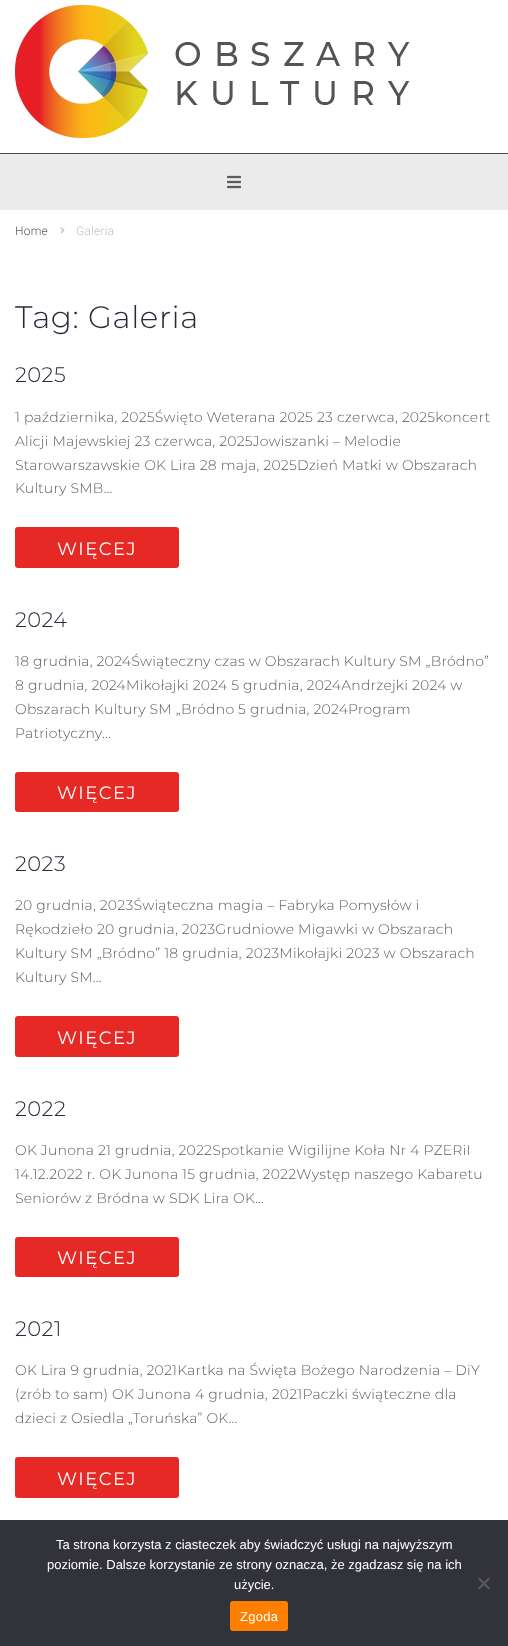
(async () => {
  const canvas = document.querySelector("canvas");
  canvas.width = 508;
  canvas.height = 1646;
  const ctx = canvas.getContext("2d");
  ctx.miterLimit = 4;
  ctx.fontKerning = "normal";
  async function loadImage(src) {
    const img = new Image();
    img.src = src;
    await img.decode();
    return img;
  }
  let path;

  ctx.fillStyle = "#ffffff";
  ctx.fillRect(0, 0, 508, 1646);
  ctx.drawImage(await loadImage("img/1.png"), 15, 5, 395, 133);
  ctx.fillStyle = "#ebebeb";
  ctx.fillRect(0, 154, 508, 56);
  ctx.fillStyle = "#49494d";
  ctx.fillRect(0, 153, 508, 1);
  ctx.drawImage(await loadImage("img/2.png"), 227, 175, 14, 14);
  ctx.drawImage(await loadImage("img/3.png"), 60, 227, 5, 7);
  ctx.fillStyle = "#e62925";
  ctx.beginPath();
  ctx.roundRect(15, 527, 164, 41, 3);
  ctx.fill();
  ctx.beginPath();
  ctx.roundRect(15, 772, 164, 40, 3);
  ctx.fill();
  ctx.beginPath();
  ctx.roundRect(15, 1016, 164, 41, 3);
  ctx.fill();
  ctx.beginPath();
  ctx.roundRect(15, 1237, 164, 40, 3);
  ctx.fill();
  ctx.beginPath();
  ctx.roundRect(15, 1457, 164, 41, 3);
  ctx.fill();
  ctx.fillStyle = "#32323a";
  ctx.fillRect(0, 1520, 508, 126);
  ctx.fillStyle = "#59595d";
  path = new Path2D("M488.5 1577.5L490 1579L479.5 1589.5L478 1588Z");
  ctx.fill(path);
  path = new Path2D("M478 1579L479.5 1577.5L490 1588L488.5 1589.5Z");
  ctx.fill(path);
  ctx.fillStyle = "#ff7f00";
  ctx.beginPath();
  ctx.roundRect(230, 1601, 58, 30, 3);
  ctx.fill();
  ctx.letterSpacing = "0.22px";
  ctx.font = "300 12px Roboto";
  ctx.fillStyle = "#5b5b60";
  ctx.fillText("Home", 15, 235);
  ctx.fillStyle = "#c3c3c9";
  ctx.fillText("Galeria", 76, 235);
  ctx.letterSpacing = "0.6px";
  ctx.font = "300 31px Montserrat";
  ctx.fillStyle = "#29293a";
  ctx.fillText("Tag: Galeria", 15, 328);
  ctx.letterSpacing = "0.5px";
  ctx.font = "300 21px Montserrat";
  ctx.fillText("2025", 15, 382);
  ctx.letterSpacing = "0.22px";
  ctx.font = "300 14px Montserrat";
  ctx.fillStyle = "#5b5b60";
  for (const [text, x, y] of [
    ["1 października, 2025Święto Weterana 2025 23 czerwca, 2025koncert", 15, 422],
    ["Alicji Majewskiej 23 czerwca, 2025Jowiszanki – Melodie", 15, 446],
    ["Starowarszawskie OK Lira 28 maja, 2025Dzień Matki w Obszarach", 15, 470],
    ["Kultury SMB...", 15, 493],
  ]) {
    ctx.fillText(text, x, y);
  }
  ctx.letterSpacing = "1.5px";
  ctx.font = "18px Montserrat";
  ctx.fillStyle = "#ffffff";
  ctx.fillText("WIĘCEJ", 57, 555);
  ctx.letterSpacing = "0.5px";
  ctx.font = "300 21px Montserrat";
  ctx.fillStyle = "#29293a";
  ctx.fillText("2024", 15, 627);
  ctx.letterSpacing = "0.22px";
  ctx.font = "300 14px Montserrat";
  ctx.fillStyle = "#5b5b60";
  for (const [text, x, y] of [
    ["18 grudnia, 2024Świąteczny czas w Obszarach Kultury SM „Bródno”", 15, 666],
    ["8 grudnia, 2024Mikołajki 2024 5 grudnia, 2024Andrzejki 2024 w", 15, 690],
    ["Obszarach Kultury SM „Bródno 5 grudnia, 2024Program", 15, 714],
    ["Patriotyczny...", 15, 738],
  ]) {
    ctx.fillText(text, x, y);
  }
  ctx.letterSpacing = "1.5px";
  ctx.font = "18px Montserrat";
  ctx.fillStyle = "#ffffff";
  ctx.fillText("WIĘCEJ", 57, 799);
  ctx.letterSpacing = "0.5px";
  ctx.font = "300 21px Montserrat";
  ctx.fillStyle = "#29293a";
  ctx.fillText("2023", 15, 871);
  ctx.letterSpacing = "0.22px";
  ctx.font = "300 14px Montserrat";
  ctx.fillStyle = "#5b5b60";
  for (const [text, x, y] of [
    ["20 grudnia, 2023Świąteczna magia – Fabryka Pomysłów i", 15, 910],
    ["Rękodzieło 20 grudnia, 2023Grudniowe Migawki w Obszarach", 15, 934],
    ["Kultury SM „Bródno” 18 grudnia, 2023Mikołajki 2023 w Obszarach", 15, 958],
    ["Kultury SM...", 15, 982],
  ]) {
    ctx.fillText(text, x, y);
  }
  ctx.letterSpacing = "1.5px";
  ctx.font = "18px Montserrat";
  ctx.fillStyle = "#ffffff";
  ctx.fillText("WIĘCEJ", 57, 1044);
  ctx.letterSpacing = "0.5px";
  ctx.font = "300 21px Montserrat";
  ctx.fillStyle = "#29293a";
  ctx.fillText("2022", 15, 1116);
  ctx.letterSpacing = "0.22px";
  ctx.font = "300 14px Montserrat";
  ctx.fillStyle = "#5b5b60";
  for (const [text, x, y] of [
    ["OK Junona 21 grudnia, 2022Spotkanie Wigilijne Koła Nr 4 PZERiI", 15, 1155],
    ["14.12.2022 r. OK Junona 15 grudnia, 2022Występ naszego Kabaretu", 15, 1179],
    ["Seniorów z Bródna w SDK Lira OK...", 15, 1203],
  ]) {
    ctx.fillText(text, x, y);
  }
  ctx.letterSpacing = "1.5px";
  ctx.font = "18px Montserrat";
  ctx.fillStyle = "#ffffff";
  ctx.fillText("WIĘCEJ", 57, 1264);
  ctx.letterSpacing = "0.5px";
  ctx.font = "300 21px Montserrat";
  ctx.fillStyle = "#29293a";
  ctx.fillText("2021", 15, 1336);
  ctx.letterSpacing = "0.22px";
  ctx.font = "300 14px Montserrat";
  ctx.fillStyle = "#5b5b60";
  for (const [text, x, y] of [
    ["OK Lira 9 grudnia, 2021Kartka na Święta Bożego Narodzenia – DiY", 15, 1375],
    ["(zrób to sam) OK Junona 4 grudnia, 2021Paczki świąteczne dla", 15, 1399],
    ["dzieci z Osiedla „Toruńska” OK...", 15, 1423],
  ]) {
    ctx.fillText(text, x, y);
  }
  ctx.letterSpacing = "1.5px";
  ctx.font = "18px Montserrat";
  ctx.fillStyle = "#ffffff";
  ctx.fillText("WIĘCEJ", 57, 1485);
  ctx.letterSpacing = "0px";
  ctx.font = "13px Liberation Sans";
  for (const [text, x, y] of [
    ["Ta strona korzysta z ciasteczek aby świadczyć usługi na najwyższym", 56, 1549],
    ["poziomie. Dalsze korzystanie ze strony oznacza, że zgadzasz się na ich", 47, 1569],
    ["użycie.", 234, 1589],
  ]) {
    ctx.fillText(text, x, y);
  }
  ctx.letterSpacing = "0.25px";
  ctx.fillText("Zgoda", 240, 1621);
})();
